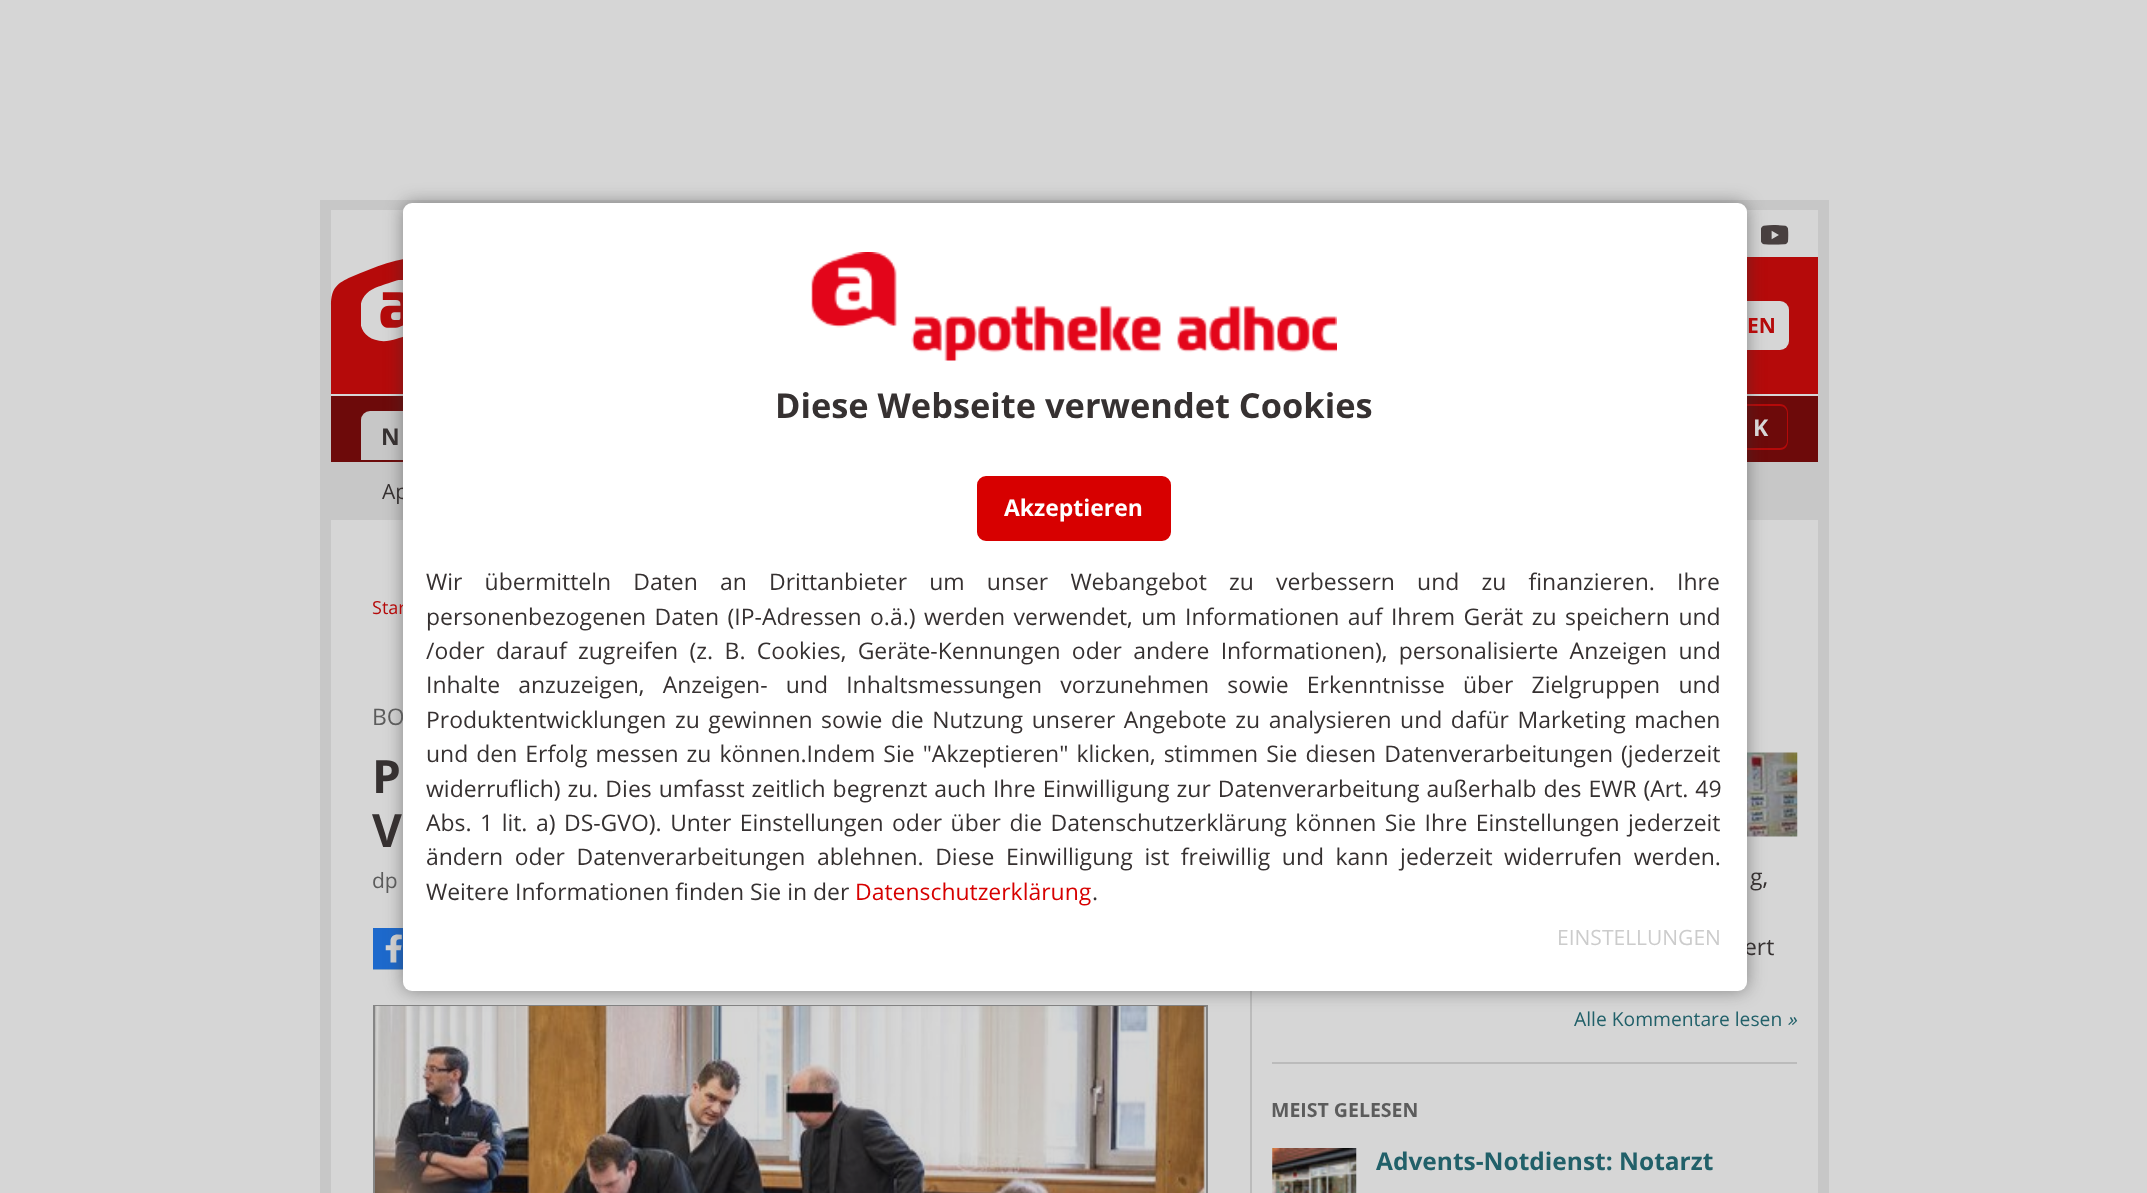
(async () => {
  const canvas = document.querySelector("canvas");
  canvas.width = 2147;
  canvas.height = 1193;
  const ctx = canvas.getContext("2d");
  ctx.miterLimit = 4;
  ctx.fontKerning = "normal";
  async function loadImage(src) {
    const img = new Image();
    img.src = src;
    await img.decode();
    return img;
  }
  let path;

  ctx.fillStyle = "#d6d6d6";
  ctx.fillRect(0, 0, 2147, 1193);
  ctx.strokeStyle = "#c7c7c7";
  ctx.lineWidth = 11;
  ctx.strokeRect(325.5, 205.5, 1498, 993);
  ctx.fillStyle = "#b50a0a";
  ctx.fillRect(1747, 257, 71, 137);
  ctx.fillStyle = "#d6d6d6";
  ctx.fillRect(331, 210, 1487, 1);
  ctx.drawImage(await loadImage("img/1.png"), 1761, 225, 28, 20);
  ctx.fillStyle = "#b50a0a";
  path = new Path2D("M453 394H331V306C331 287 338 283 351 277C375 267 398 257 424 257H453Z");
  ctx.fill(path);
  ctx.drawImage(await loadImage("img/2.png"), 361, 280, 42, 62);
  ctx.fillStyle = "#d6d6d6";
  ctx.beginPath();
  ctx.roundRect(1573, 301, 216, 49, 9);
  ctx.fill();
  ctx.fillStyle = "#6d0a0a";
  ctx.fillRect(331, 396, 1487, 66);
  ctx.fillStyle = "#c7c7c7";
  ctx.beginPath();
  ctx.roundRect(361, 411, 206, 49, [9, 9, 0, 0]);
  ctx.fill();
  ctx.fillStyle = "#b50a0a";
  path = new Path2D("M1636 404H1780C1785 404 1788 408 1788 413V441C1788 446 1785 450 1780 450H1636ZM1636 406H1780C1784 406 1787 409 1787 413V441C1787 445 1784 448 1780 448H1636Z");
  ctx.fill(path, "evenodd");
  ctx.fillStyle = "#c7c7c7";
  ctx.fillRect(331, 462, 1487, 58);
  ctx.fillStyle = "#bbbbbb";
  ctx.fillRect(1250, 991, 2, 202);
  ctx.drawImage(await loadImage("img/3.png"), 373, 928, 30, 42);
  ctx.fillStyle = "#c7c7c7";
  ctx.fillRect(1203, 1007, 3, 186);
  ctx.strokeStyle = "#858585";
  ctx.lineWidth = 2;
  ctx.strokeRect(374, 1006, 833, 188);
  ctx.drawImage(await loadImage("img/4.png"), 375, 1006, 830, 187);
  ctx.fillStyle = "#bbbbbb";
  ctx.fillRect(1272, 1062, 525, 2);
  ctx.drawImage(await loadImage("img/5.png"), 1747, 752, 51, 85);
  ctx.drawImage(await loadImage("img/6.png"), 1272, 1148, 85, 45);
  ctx.fillStyle = "rgba(51, 51, 51, 0.5)";
  ctx.filter = "blur(9px)";
  ctx.beginPath();
  ctx.roundRect(403, 203, 1344, 788, 9);
  ctx.fill();
  ctx.filter = "none";
  ctx.font = "bold 21px Open Sans";
  ctx.fillStyle = "#b50a0a";
  ctx.fillText("EN", 1747, 333);
  ctx.font = "bold 23px Open Sans";
  ctx.fillStyle = "#363131";
  ctx.fillText("N", 381, 445);
  ctx.fillStyle = "#d6d6d6";
  ctx.fillText("K", 1753, 436);
  ctx.font = "21px Open Sans";
  ctx.fillStyle = "#363131";
  ctx.fillText("Ap", 382, 499);
  ctx.font = "18px Open Sans";
  ctx.fillStyle = "#b50a0a";
  ctx.fillText("Star", 372, 614);
  ctx.font = "22.95px Open Sans";
  ctx.fillStyle = "#5c5c5c";
  ctx.fillText("BO", 372, 725);
  ctx.font = "bold 46px Open Sans";
  ctx.fillStyle = "#363131";
  ctx.fillText("P", 372, 793);
  ctx.fillText("V", 372, 847);
  ctx.font = "21px Open Sans";
  ctx.fillStyle = "#5c5c5c";
  ctx.fillText("dp", 372, 888);
  ctx.font = "22.95px Open Sans";
  ctx.fillStyle = "#363131";
  ctx.fillText("g,", 1750, 885);
  ctx.fillText("ert", 1744, 955);
  ctx.font = "19.25px Open Sans";
  ctx.fillStyle = "#216069";
  ctx.fillText("Alle Kommentare lesen", 1574, 1026);
  ctx.font = "italic 19.25px Open Sans";
  ctx.fillText("»", 1787, 1026);
  ctx.font = "bold 19.5px Open Sans";
  ctx.fillStyle = "#5c5c5c";
  ctx.fillText("MEIST GELESEN", 1271, 1117);
  ctx.font = "bold 24.5px Open Sans";
  ctx.fillStyle = "#216069";
  ctx.fillText("Advents-Notdienst: Notarzt", 1376, 1170);
  ctx.fillStyle = "#ffffff";
  ctx.beginPath();
  ctx.roundRect(403, 203, 1344, 788, 9);
  ctx.fill();
  ctx.drawImage(await loadImage("img/7.png"), 811, 252, 526, 109);
  ctx.font = "bold 34.4px Open Sans";
  ctx.fillStyle = "#363131";
  ctx.fillText("Diese Webseite verwendet Cookies", 775, 418);
  ctx.fillStyle = "#d70000";
  ctx.beginPath();
  ctx.roundRect(979, 478, 190, 61, 7);
  ctx.fill();
  ctx.strokeStyle = "#d70000";
  ctx.lineWidth = 4;
  ctx.stroke();
  ctx.font = "bold 22.95px Open Sans";
  ctx.fillStyle = "#ffffff";
  ctx.fillText("Akzeptieren", 1004, 516);
  ctx.wordSpacing = "16.25px";
  ctx.font = "22.95px Open Sans";
  ctx.fillStyle = "#363131";
  ctx.fillText("Wir übermitteln Daten an Drittanbieter um unser Webangebot zu verbessern und zu finanzieren. Ihre", 426, 590);
  ctx.wordSpacing = "2.5px";
  ctx.fillText("personenbezogenen Daten (IP-Adressen o.ä.) werden verwendet, um Informationen auf Ihrem Gerät zu speichern und", 426, 625);
  ctx.wordSpacing = "5.4px";
  ctx.fillText("/oder darauf zugreifen (z. B. Cookies, Geräte-Kennungen oder andere Informationen), personalisierte Anzeigen und", 426, 659);
  ctx.wordSpacing = "12.25px";
  ctx.fillText("Inhalte anzuzeigen, Anzeigen- und Inhaltsmessungen vorzunehmen sowie Erkenntnisse über Zielgruppen und", 426, 693);
  ctx.wordSpacing = "2.6px";
  ctx.fillText("Produktentwicklungen zu gewinnen sowie die Nutzung unserer Angebote zu analysieren und dafür Marketing machen", 426, 728);
  ctx.wordSpacing = "2.1px";
  ctx.fillText("und den Erfolg messen zu können.Indem Sie \"Akzeptieren\" klicken, stimmen Sie diesen Datenverarbeitungen (jederzeit", 426, 762);
  ctx.wordSpacing = "1px";
  ctx.fillText("widerruflich) zu. Dies umfasst zeitlich begrenzt auch Ihre Einwilligung zur Datenverarbeitung außerhalb des EWR (Art. 49", 426, 797);
  ctx.wordSpacing = "2.5px";
  ctx.fillText("Abs. 1 lit. a) DS-GVO). Unter Einstellungen oder über die Datenschutzerklärung können Sie Ihre Einstellungen jederzeit", 426, 831);
  ctx.wordSpacing = "5.6px";
  ctx.fillText("ändern oder Datenverarbeitungen ablehnen. Diese Einwilligung ist freiwillig und kann jederzeit widerrufen werden.", 426, 865);
  ctx.wordSpacing = "0px";
  ctx.fillText("Weitere Informationen finden Sie in der", 426, 900);
  ctx.fillStyle = "#d70000";
  ctx.fillText("Datenschutzerklärung", 855, 900);
  ctx.fillStyle = "#363131";
  ctx.fillText(".", 1092, 900);
  ctx.font = "21px Open Sans";
  ctx.fillStyle = "#cccccc";
  ctx.fillText("EINSTELLUNGEN", 1557, 945);
})();
